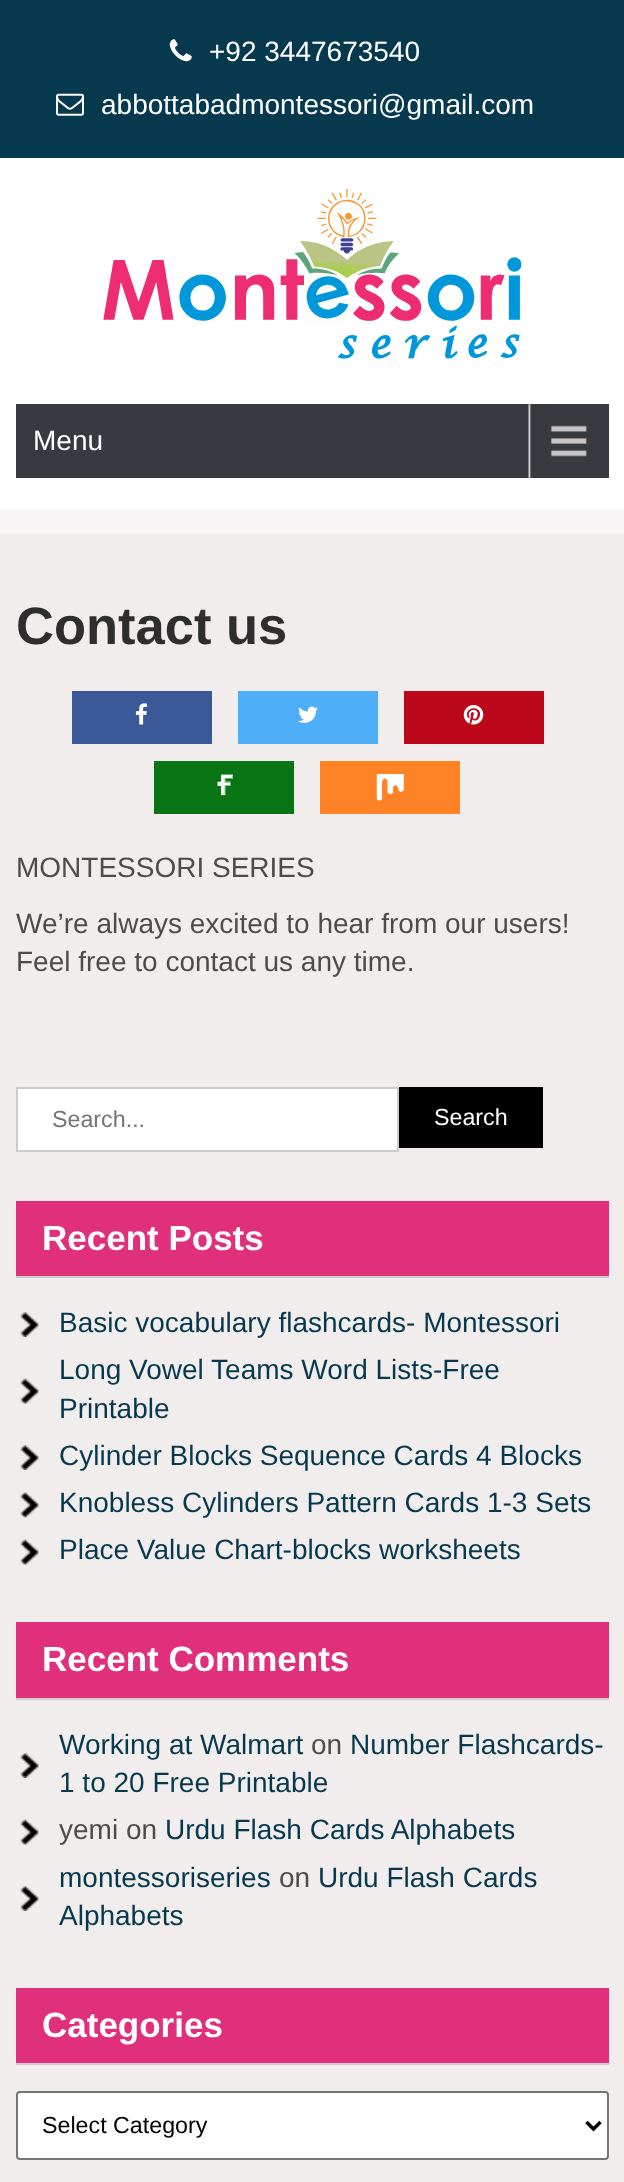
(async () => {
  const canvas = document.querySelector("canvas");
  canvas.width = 624;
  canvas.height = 2182;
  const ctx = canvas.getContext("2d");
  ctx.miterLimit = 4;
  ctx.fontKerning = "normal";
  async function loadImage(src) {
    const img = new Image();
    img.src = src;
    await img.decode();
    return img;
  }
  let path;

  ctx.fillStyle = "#f2eded";
  ctx.fillRect(0, 0, 624, 2182);
  ctx.fillStyle = "#f8f6f6";
  ctx.fillRect(0, 509, 624, 25);
  ctx.fillStyle = "#06384e";
  ctx.fillRect(0, 0, 624, 158);
  ctx.drawImage(await loadImage("img/1.png"), 169, 39, 23, 23);
  ctx.drawImage(await loadImage("img/2.png"), 56, 93, 28, 23);
  ctx.fillStyle = "#ffffff";
  ctx.fillRect(0, 158, 624, 351);
  ctx.drawImage(await loadImage("img/3.png"), 103, 189, 419, 170);
  ctx.fillStyle = "#373a3f";
  ctx.fillRect(16, 404, 593, 74);
  ctx.drawImage(await loadImage("img/4.png"), 528, 404, 59, 74);
  ctx.fillStyle = "#3b5998";
  ctx.fillRect(72, 691, 140, 53);
  ctx.drawImage(await loadImage("img/5.png"), 135, 703, 12, 22);
  ctx.fillStyle = "#4eaef8";
  ctx.fillRect(238, 691, 140, 53);
  ctx.drawImage(await loadImage("img/6.png"), 298, 706, 20, 17);
  ctx.fillStyle = "#bd081c";
  ctx.fillRect(404, 691, 140, 53);
  ctx.drawImage(await loadImage("img/7.png"), 463, 705, 21, 20);
  ctx.fillStyle = "#087515";
  ctx.fillRect(154, 761, 140, 53);
  ctx.drawImage(await loadImage("img/8.png"), 217, 774, 16, 22);
  ctx.fillStyle = "#ff8226";
  ctx.fillRect(320, 761, 140, 53);
  ctx.drawImage(await loadImage("img/9.png"), 376, 774, 28, 27);
  ctx.fillStyle = "#ffffff";
  ctx.beginPath();
  ctx.rect(17, 1088, 381, 63);
  ctx.fill();
  ctx.strokeStyle = "#cccccc";
  ctx.lineWidth = 2;
  ctx.stroke();
  for (const [x, y, w, h, color] of [
    [399, 1087, 144, 61, "#000000"],
    [16, 1201, 593, 75, "#e02f7b"],
    [16, 1276, 593, 2, "#cccccc"],
  ]) {
    ctx.fillStyle = color;
    ctx.fillRect(x, y, w, h);
  }
  ctx.drawImage(await loadImage("img/10.png"), 20, 1312, 19, 25);
  ctx.drawImage(await loadImage("img/11.png"), 20, 1378, 19, 26);
  ctx.drawImage(await loadImage("img/10.png"), 20, 1445, 19, 25);
  ctx.drawImage(await loadImage("img/12.png"), 20, 1492, 19, 26);
  ctx.drawImage(await loadImage("img/11.png"), 20, 1539, 19, 26);
  ctx.fillStyle = "#e02f7b";
  ctx.fillRect(16, 1622, 593, 76);
  ctx.fillStyle = "#cccccc";
  ctx.fillRect(16, 1698, 593, 2);
  ctx.drawImage(await loadImage("img/10.png"), 20, 1753, 19, 25);
  ctx.drawImage(await loadImage("img/13.png"), 20, 1819, 19, 26);
  ctx.drawImage(await loadImage("img/14.png"), 20, 1886, 19, 25);
  ctx.fillStyle = "#e02f7b";
  ctx.fillRect(16, 1988, 593, 75);
  ctx.fillStyle = "#cccccc";
  ctx.fillRect(16, 2063, 593, 2);
  ctx.fillStyle = "#ffffff";
  ctx.beginPath();
  ctx.roundRect(17, 2092, 591, 67, 3);
  ctx.fill();
  ctx.strokeStyle = "#767676";
  ctx.stroke();
  path = new Path2D("M586.5 2122L593.5 2129L600.5 2122");
  ctx.strokeStyle = "#000000";
  ctx.lineWidth = 3.5;
  ctx.stroke(path);
  ctx.font = "28px Liberation Sans";
  for (const [text, x, y] of [
    ["+92 3447673540", 209, 61],
    ["abbottabadmontessori@gmail.com", 101, 114],
    ["Menu", 33, 450],
  ]) {
    ctx.fillText(text, x, y);
  }
  ctx.font = "bold 52.5px Liberation Sans";
  ctx.fillStyle = "#2e2e2e";
  ctx.fillText("Contact us", 16, 644);
  ctx.font = "28px Liberation Sans";
  ctx.fillStyle = "#4c4c4c";
  for (const [text, x, y] of [
    ["MONTESSORI SERIES", 16, 877],
    ["We’re always excited to hear from our users!", 16, 933],
    ["Feel free to contact us any time.", 16, 971],
  ]) {
    ctx.fillText(text, x, y);
  }
  ctx.font = "23.25px Liberation Sans";
  ctx.fillStyle = "#757575";
  ctx.fillText("Search...", 52, 1127);
  ctx.fillStyle = "#ffffff";
  ctx.fillText("Search", 434, 1125);
  ctx.font = "bold 35px Liberation Sans";
  ctx.fillText("Recent Posts", 42, 1250);
  ctx.font = "28px Liberation Sans";
  ctx.fillStyle = "#06384e";
  for (const [text, x, y] of [
    ["Basic vocabulary flashcards- Montessori", 59, 1332],
    ["Long Vowel Teams Word Lists-Free", 59, 1379],
    ["Printable", 59, 1418],
    ["Cylinder Blocks Sequence Cards 4 Blocks", 59, 1465],
    ["Knobless Cylinders Pattern Cards 1-3 Sets", 59, 1512],
    ["Place Value Chart-blocks worksheets", 59, 1559],
  ]) {
    ctx.fillText(text, x, y);
  }
  ctx.font = "bold 35px Liberation Sans";
  ctx.fillStyle = "#ffffff";
  ctx.fillText("Recent Comments", 42, 1671);
  ctx.font = "28px Liberation Sans";
  ctx.fillStyle = "#06384e";
  ctx.fillText("Working at Walmart", 59, 1754);
  ctx.fillStyle = "#4c4c4c";
  ctx.fillText("on", 311, 1754);
  ctx.fillStyle = "#06384e";
  ctx.fillText("Number Flashcards-", 350, 1754);
  ctx.fillText("1 to 20 Free Printable", 59, 1792);
  ctx.fillStyle = "#4c4c4c";
  ctx.fillText("yemi on", 59, 1839);
  ctx.fillStyle = "#06384e";
  ctx.fillText("Urdu Flash Cards Alphabets", 165, 1839);
  ctx.fillText("montessoriseries", 59, 1887);
  ctx.fillStyle = "#4c4c4c";
  ctx.fillText("on", 279, 1887);
  ctx.fillStyle = "#06384e";
  ctx.fillText("Urdu Flash Cards", 318, 1887);
  ctx.fillText("Alphabets", 59, 1925);
  ctx.font = "bold 35px Liberation Sans";
  ctx.fillStyle = "#ffffff";
  ctx.fillText("Categories", 42, 2037);
  ctx.font = "23.25px Liberation Sans";
  ctx.fillStyle = "#000000";
  ctx.fillText("Select Category", 42, 2133);
})();
